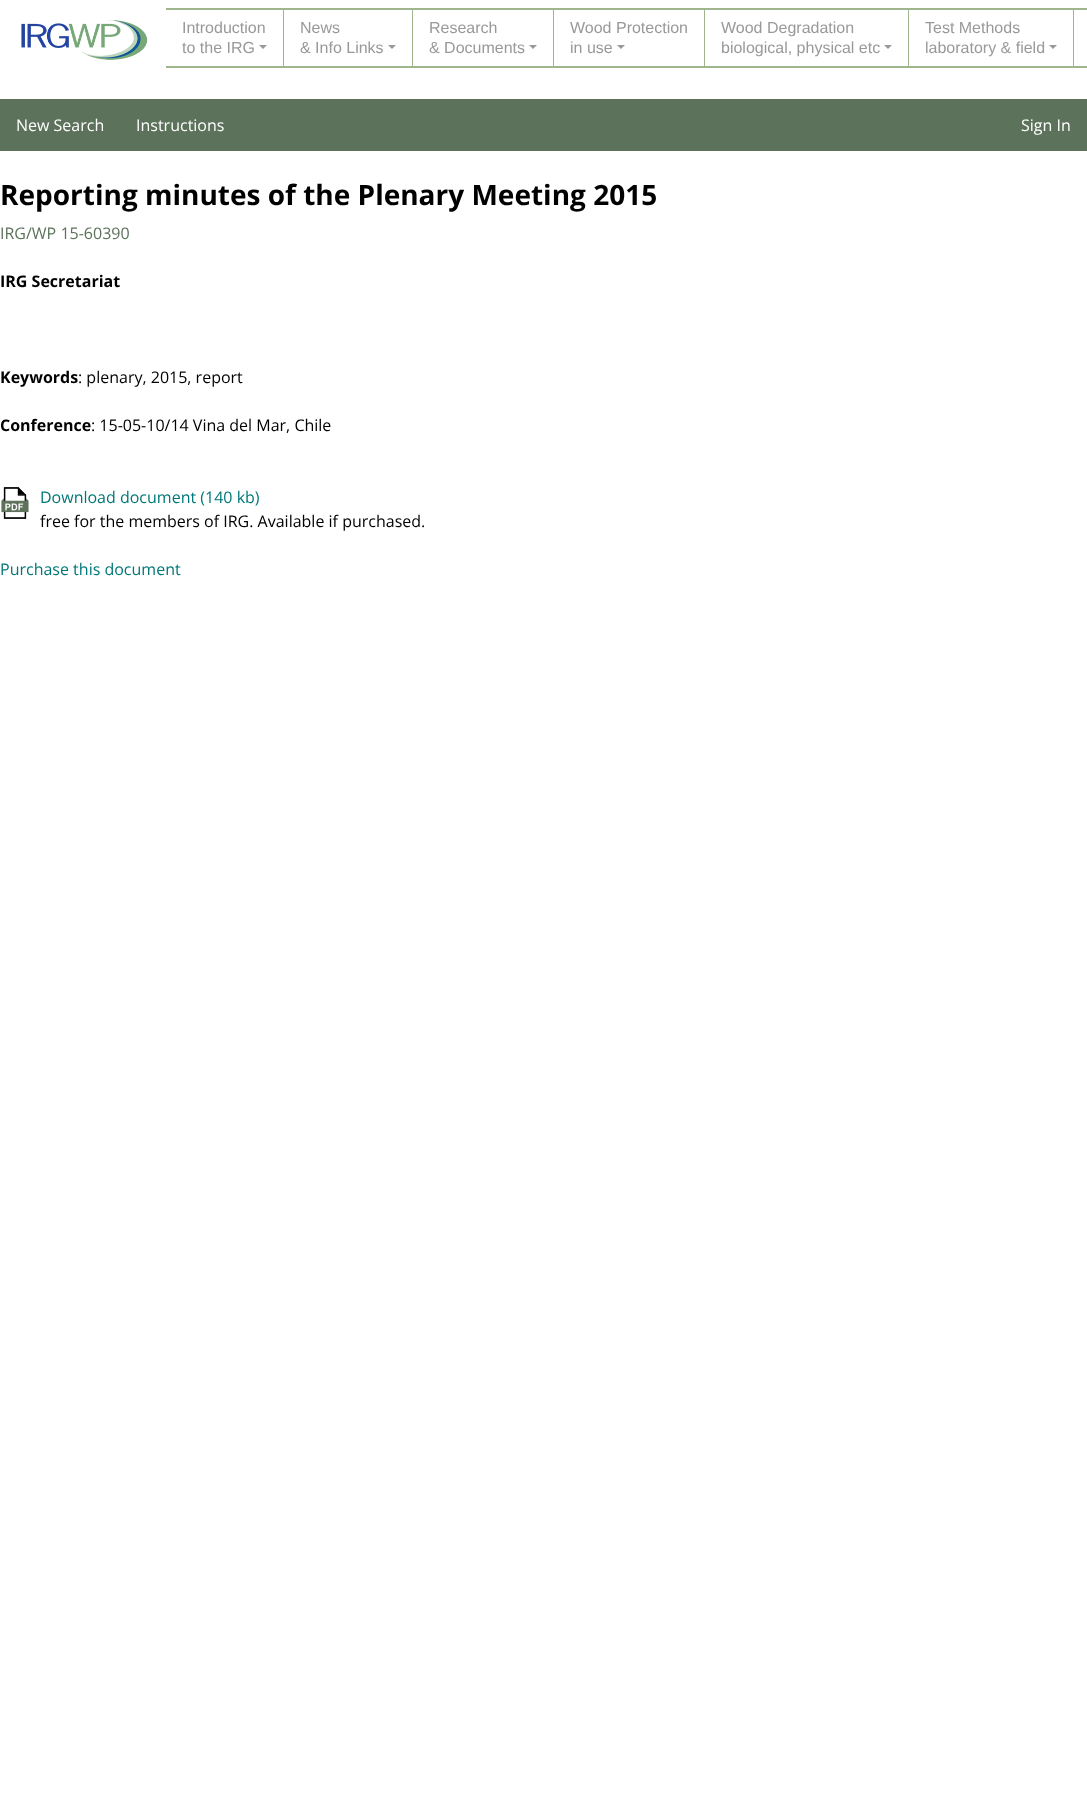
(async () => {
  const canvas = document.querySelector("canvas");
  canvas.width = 1087;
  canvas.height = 1812;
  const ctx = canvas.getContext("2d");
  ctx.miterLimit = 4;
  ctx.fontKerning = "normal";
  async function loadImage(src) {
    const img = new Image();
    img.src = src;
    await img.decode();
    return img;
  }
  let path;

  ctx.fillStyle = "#ffffff";
  ctx.fillRect(0, 0, 1087, 1812);
  ctx.drawImage(await loadImage("img/1.png"), 21, 20, 127, 40);
  for (const [x, y, w, h, color] of [
    [166, 8, 921, 2, "#9eb58e"],
    [283, 8, 1, 60, "#9eb58e"],
    [166, 66, 118, 2, "#9eb58e"],
  ]) {
    ctx.fillStyle = color;
    ctx.fillRect(x, y, w, h);
  }
  ctx.fillStyle = "#999999";
  path = new Path2D("M259 45H267L263 49Z");
  ctx.fill(path);
  ctx.fillStyle = "#9eb58e";
  ctx.fillRect(412, 8, 1, 60);
  ctx.fillRect(284, 66, 129, 2);
  ctx.fillStyle = "#999999";
  path = new Path2D("M388 45H396L392 49Z");
  ctx.fill(path);
  ctx.fillStyle = "#9eb58e";
  ctx.fillRect(553, 8, 1, 60);
  ctx.fillRect(413, 66, 141, 2);
  ctx.fillStyle = "#999999";
  path = new Path2D("M529 45H537L533 49Z");
  ctx.fill(path);
  ctx.fillStyle = "#9eb58e";
  ctx.fillRect(704, 8, 1, 60);
  ctx.fillRect(554, 66, 151, 2);
  ctx.fillStyle = "#999999";
  path = new Path2D("M617 45H625L621 49Z");
  ctx.fill(path);
  ctx.fillStyle = "#9eb58e";
  ctx.fillRect(908, 8, 1, 60);
  ctx.fillRect(705, 66, 204, 2);
  ctx.fillStyle = "#999999";
  path = new Path2D("M884 45H892L888 49Z");
  ctx.fill(path);
  ctx.fillStyle = "#9eb58e";
  ctx.fillRect(1073, 8, 1, 60);
  ctx.fillRect(909, 66, 178, 2);
  ctx.fillStyle = "#999999";
  path = new Path2D("M1049 45H1057L1053 49Z");
  ctx.fill(path);
  ctx.fillStyle = "#5d725b";
  ctx.fillRect(0, 99, 1087, 52);
  ctx.drawImage(await loadImage("img/2.png"), 1, 487, 28, 32);
  ctx.font = "16px Liberation Sans";
  ctx.fillStyle = "#999999";
  for (const [text, x, y] of [
    ["Introduction", 182, 33],
    ["to the IRG", 182, 53],
    ["News", 300, 33],
    ["& Info Links", 300, 53],
    ["Research", 429, 33],
    ["& Documents", 429, 53],
    ["Wood Protection", 570, 33],
    ["in use", 570, 53],
    ["Wood Degradation", 721, 33],
    ["biological, physical etc", 721, 53],
    ["Test Methods", 925, 33],
    ["laboratory & field", 925, 53],
  ]) {
    ctx.fillText(text, x, y);
  }
  ctx.font = "16px Open Sans";
  ctx.fillStyle = "#ffffff";
  for (const [text, x, y] of [
    ["New Search", 16, 131],
    ["Instructions", 136, 131],
    ["Sign In", 1021, 131],
  ]) {
    ctx.fillText(text, x, y);
  }
  ctx.font = "bold 28px Open Sans";
  ctx.fillStyle = "#000000";
  ctx.fillText("Reporting minutes of the Plenary Meeting 2015", 0, 205);
  ctx.font = "16px Open Sans";
  ctx.fillStyle = "#5d725b";
  ctx.fillText("IRG/WP 15-60390", 0, 239);
  ctx.font = "bold 16px Open Sans";
  ctx.fillStyle = "#000000";
  ctx.fillText("IRG Secretariat", 0, 287);
  ctx.fillText("Keywords", 0, 383);
  ctx.font = "16px Open Sans";
  ctx.fillText(": plenary, 2015, report", 78, 383);
  ctx.font = "bold 16px Open Sans";
  ctx.fillText("Conference", 0, 431);
  ctx.font = "16px Open Sans";
  ctx.fillText(": 15-05-10/14 Vina del Mar, Chile", 91, 431);
  ctx.fillStyle = "#007777";
  ctx.fillText("Download document (140 kb)", 40, 503);
  ctx.fillStyle = "#000000";
  ctx.fillText("free for the members of IRG. Available if purchased.", 40, 527);
  ctx.fillStyle = "#007777";
  ctx.fillText("Purchase this document", 0, 575);
})();
